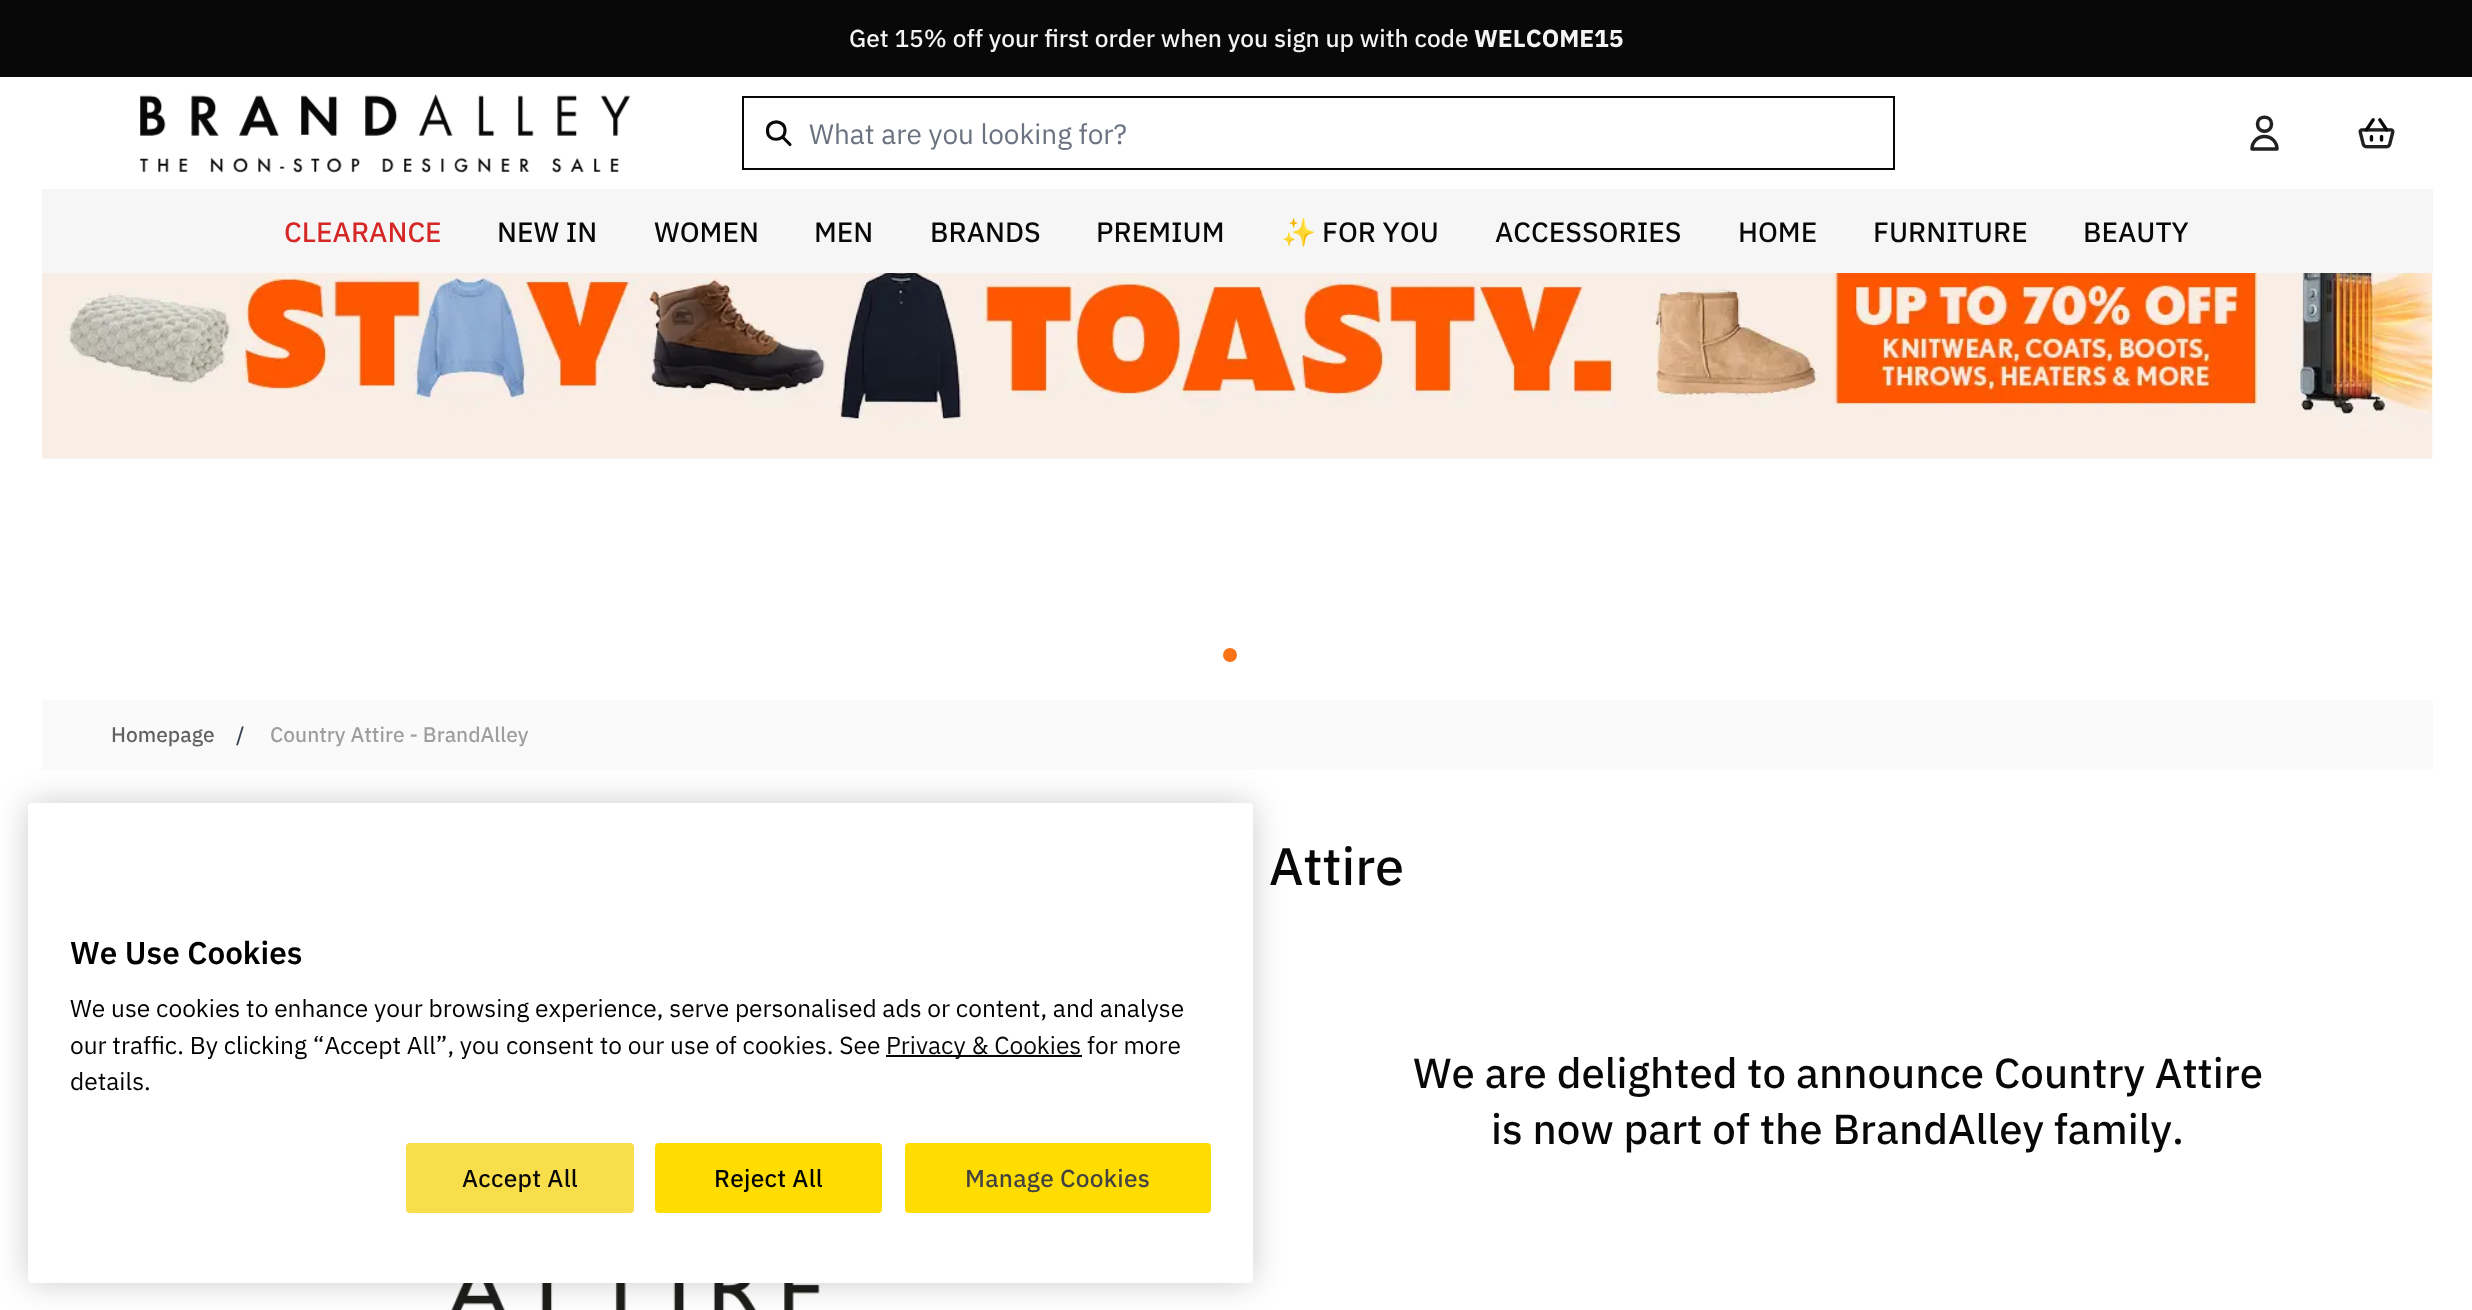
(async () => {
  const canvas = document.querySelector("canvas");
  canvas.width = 2472;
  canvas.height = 1310;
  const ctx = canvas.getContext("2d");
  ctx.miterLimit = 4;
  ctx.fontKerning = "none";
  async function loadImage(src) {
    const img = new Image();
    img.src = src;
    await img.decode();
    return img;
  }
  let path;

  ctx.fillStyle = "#ffffff";
  ctx.fillRect(0, 0, 2472, 1310);
  ctx.fillStyle = "#080808";
  ctx.fillRect(0, 0, 2472, 77);
  ctx.drawImage(await loadImage("img/1.png"), 140, 94, 491, 79);
  ctx.strokeStyle = "#080808";
  ctx.lineWidth = 2;
  ctx.strokeRect(743, 97, 1151, 72);
  path = new Path2D("M790 144.5L782.5 137M785 130.5C785 142.5 767 142 767.5 130.5C767.5 119 785 119 785 130.5Z");
  ctx.lineWidth = 3.1;
  ctx.lineCap = "round";
  ctx.lineJoin = "round";
  ctx.stroke(path);
  path = new Path2D("M2271.5 124C2271.5 133.5 2257.5 133.5 2257.5 124C2257.5 115 2271.5 115 2271.5 124ZM2264.5 136.5C2257.5 136.5 2252 142 2252 149H2277C2277 142 2271.5 136.5 2264.5 136.5Z");
  ctx.strokeStyle = "#212121";
  ctx.lineWidth = 3.5;
  ctx.stroke(path);
  ctx.drawImage(await loadImage("img/2.png"), 2358, 118, 37, 31);
  ctx.fillStyle = "#f6f6f6";
  ctx.fillRect(42, 189, 2391, 84);
  ctx.drawImage(await loadImage("img/3.png"), 42, 273, 2391, 186);
  ctx.fillStyle = "#f97316";
  ctx.beginPath();
  ctx.arc(1230, 655, 7, 0, Math.PI * 2);
  ctx.fill();
  ctx.fillStyle = "#fafafa";
  ctx.fillRect(42, 700, 2391, 70);
  ctx.drawImage(await loadImage("img/4.png"), 451, 1283, 369, 27);
  ctx.fillStyle = "rgba(0, 0, 0, 0.2)";
  ctx.filter = "blur(16px)";
  ctx.beginPath();
  ctx.roundRect(28, 803, 1225, 480, 4);
  ctx.fill();
  ctx.filter = "none";
  ctx.fillStyle = "#ffffff";
  ctx.beginPath();
  ctx.roundRect(28, 803, 1225, 480, 4);
  ctx.fill();
  ctx.fillStyle = "#080808";
  ctx.fillRect(886, 1055, 196, 2);
  ctx.fillStyle = "#f9de4b";
  ctx.beginPath();
  ctx.roundRect(407, 1144, 226, 68, 3);
  ctx.fill();
  ctx.strokeStyle = "#f9de4b";
  ctx.lineWidth = 2;
  ctx.lineJoin = "miter";
  ctx.stroke();
  ctx.fillStyle = "#ffdd00";
  ctx.beginPath();
  ctx.roundRect(656, 1144, 225, 68, 3);
  ctx.fill();
  ctx.strokeStyle = "#ffdd00";
  ctx.stroke();
  ctx.beginPath();
  ctx.roundRect(906, 1144, 304, 68, 3);
  ctx.fill();
  ctx.stroke();
  ctx.font = "500 24.5px Anuphan";
  ctx.fillStyle = "#f3f4f6";
  ctx.fillText("Get 15% off your first order when you sign up with code", 849, 47);
  ctx.font = "bold 24.5px Anuphan";
  ctx.fillText("WELCOME15", 1474, 47);
  ctx.font = "28px Anuphan";
  ctx.fillStyle = "#6b7280";
  ctx.fillText("What are you looking for?", 809, 144);
  ctx.font = "500 28px Anuphan";
  ctx.fillStyle = "#d62727";
  ctx.fillText("CLEARANCE", 284, 242);
  ctx.fillStyle = "#080808";
  for (const [text, x, y] of [
    ["NEW IN", 497, 242],
    ["WOMEN", 654, 242],
    ["MEN", 814, 242],
    ["BRANDS", 930, 242],
    ["PREMIUM", 1096, 242],
  ]) {
    ctx.fillText(text, x, y);
  }
  ctx.font = "28px Noto Color Emoji";
  ctx.fillText("✨", 1281, 242);
  ctx.font = "500 28px Anuphan";
  for (const [text, x, y] of [
    ["FOR YOU", 1322, 242],
    ["ACCESSORIES", 1495, 242],
    ["HOME", 1738, 242],
    ["FURNITURE", 1873, 242],
    ["BEAUTY", 2083, 242],
  ]) {
    ctx.fillText(text, x, y);
  }
  ctx.font = "500 21px Anuphan";
  ctx.fillStyle = "#616161";
  ctx.fillText("Homepage", 111, 742);
  ctx.fillStyle = "#374151";
  ctx.fillText("/", 236, 742);
  ctx.fillStyle = "#9e9e9e";
  ctx.fillText("Country Attire - BrandAlley", 270, 742);
  ctx.font = "500 52.5px Anuphan";
  ctx.fillStyle = "#080808";
  ctx.fillText("Attire", 1269, 885);
  ctx.font = "500 42px Anuphan";
  ctx.fillText("We are delighted to announce Country Attire", 1413, 1088);
  ctx.fillText("is now part of the BrandAlley family.", 1491, 1144);
  ctx.font = "600 31.5px Anuphan";
  ctx.fillStyle = "#000000";
  ctx.fillText("We Use Cookies", 70, 964);
  ctx.font = "24.5px Anuphan";
  ctx.fillText("We use cookies to enhance your browsing experience, serve personalised ads or content, and analyse", 70, 1017);
  ctx.fillText("our traffic. By clicking “Accept All”, you", 70, 1054);
  ctx.fillText("consent to our use of cookies. See", 506, 1054);
  ctx.fillStyle = "#080808";
  ctx.fillText("Privacy & Cookies", 886, 1054);
  ctx.fillStyle = "#000000";
  ctx.fillText("for more", 1087, 1054);
  ctx.fillText("details.", 70, 1090);
  ctx.letterSpacing = "0.25px";
  ctx.font = "500 24.5px Anuphan";
  ctx.fillStyle = "#080808";
  ctx.fillText("Accept All", 462, 1187);
  ctx.fillStyle = "#000000";
  ctx.fillText("Reject All", 714, 1187);
  ctx.fillStyle = "#424242";
  ctx.fillText("Manage Cookies", 965, 1187);
})();
